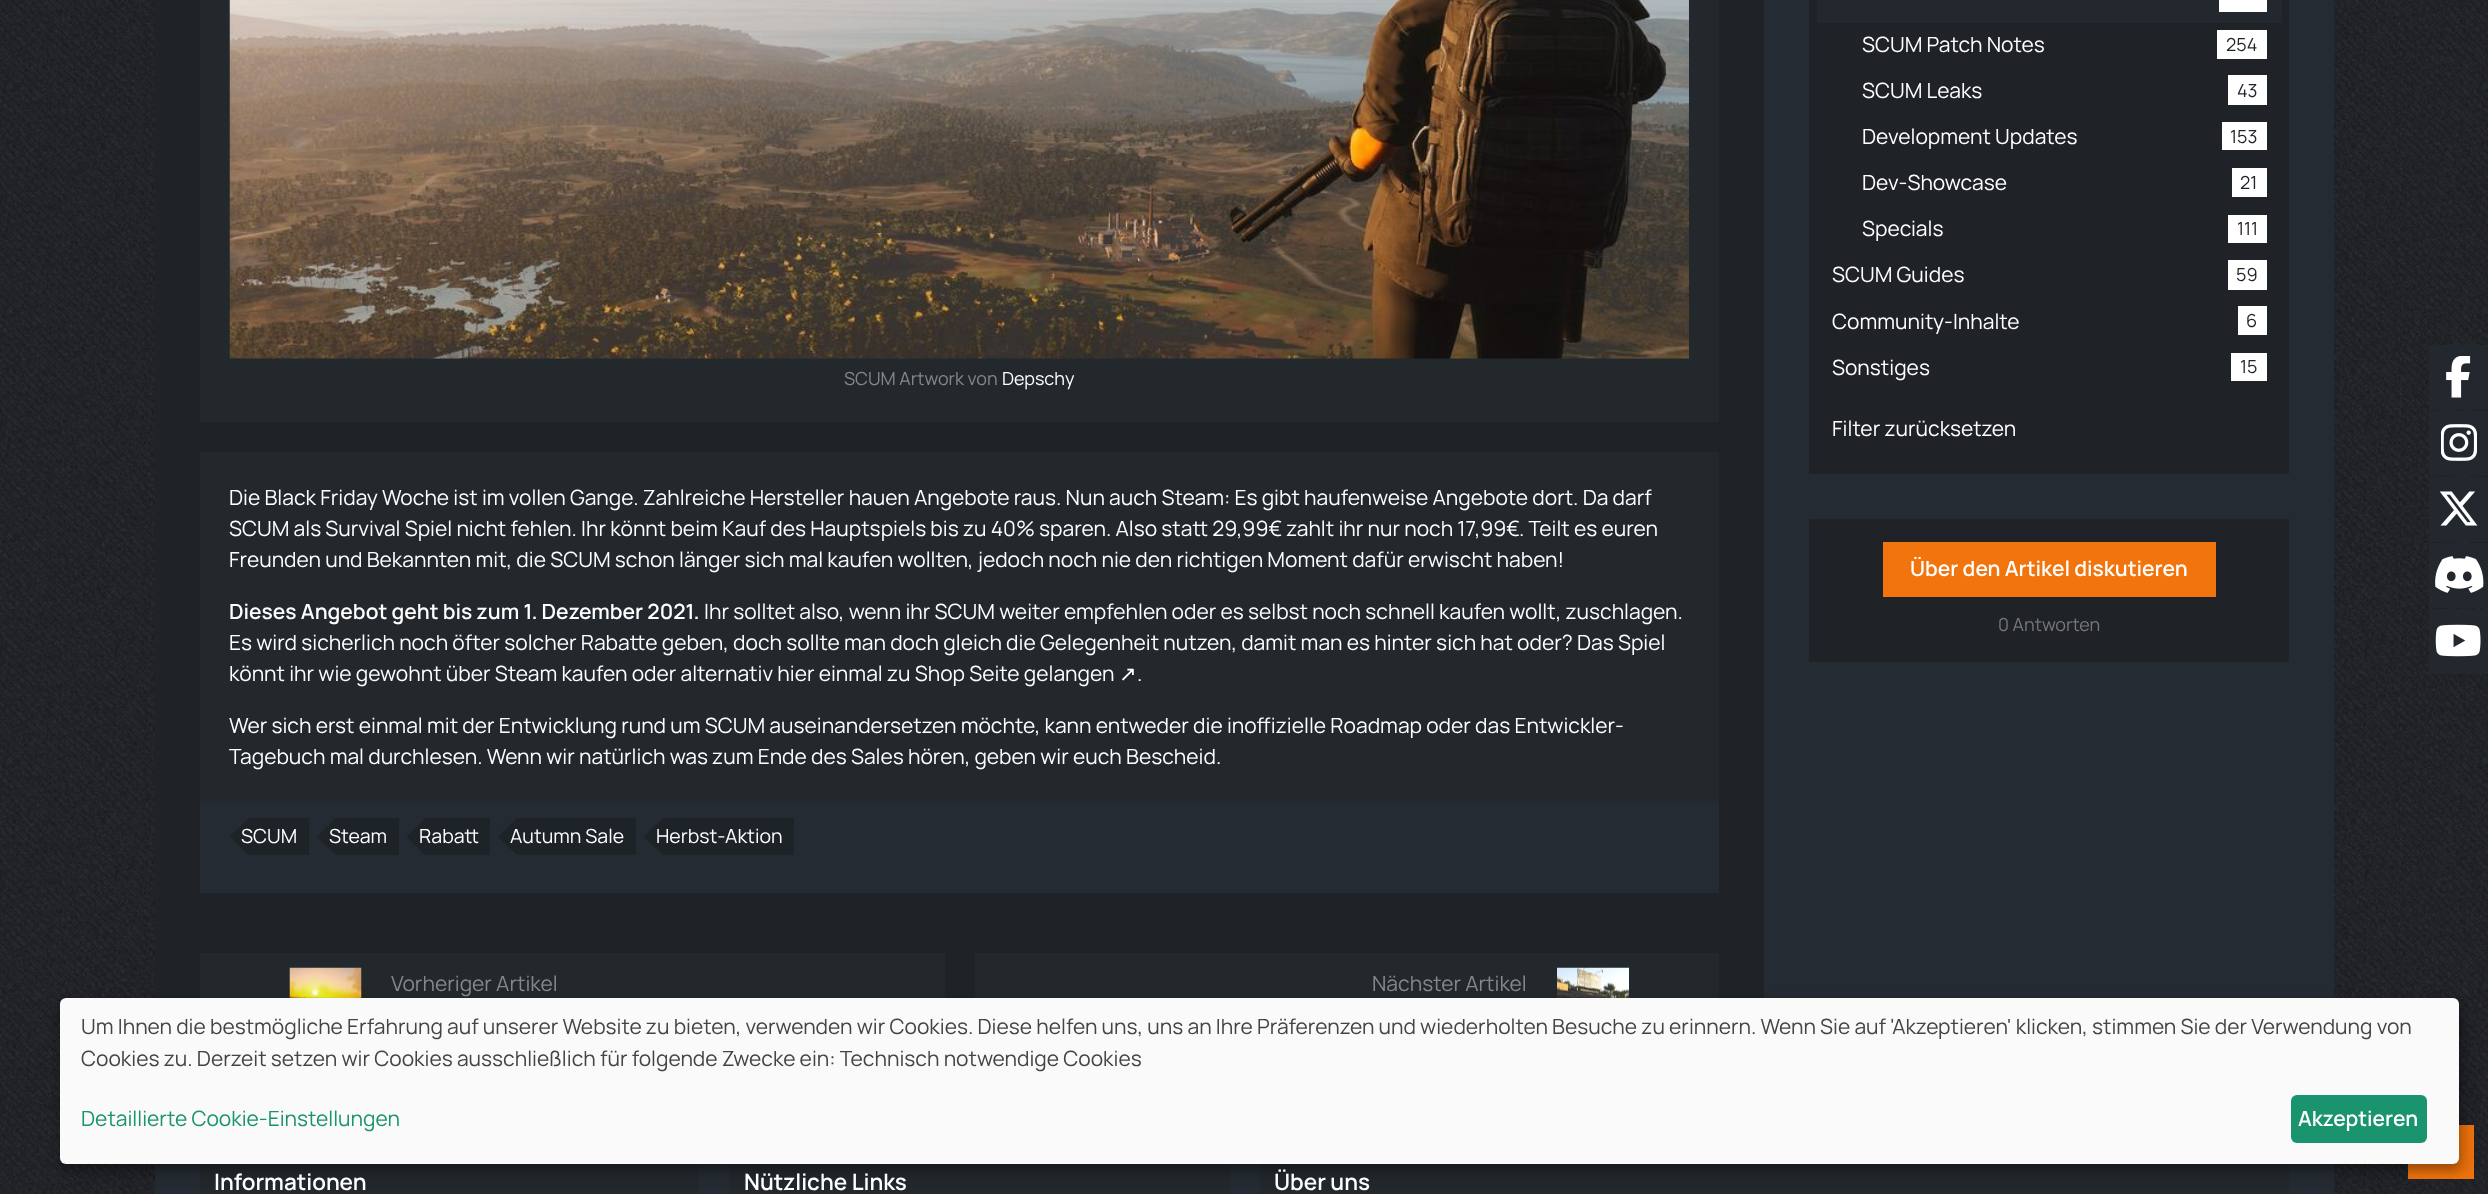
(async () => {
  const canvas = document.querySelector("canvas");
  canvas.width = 2488;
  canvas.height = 1194;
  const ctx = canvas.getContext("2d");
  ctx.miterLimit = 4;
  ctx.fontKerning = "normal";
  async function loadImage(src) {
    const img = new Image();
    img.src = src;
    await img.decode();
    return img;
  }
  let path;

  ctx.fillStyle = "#ffffff";
  ctx.fillRect(0, 0, 2488, 1194);
  ctx.drawImage(await loadImage("img/1.png"), 0, 0, 2488, 1194);
  ctx.fillStyle = "#1f2328";
  ctx.fillRect(155, 0, 1609, 998);
  ctx.fillStyle = "#23282d";
  ctx.fillRect(200, 0, 1519, 422);
  ctx.drawImage(await loadImage("img/2.png"), 229, 0, 1460, 359);
  ctx.fillRect(200, 452, 1519, 351);
  ctx.fillStyle = "#252b32";
  ctx.fillRect(200, 803, 1519, 90);
  ctx.fillStyle = "#1e2328";
  path = new Path2D("M248 855L230 837V836L249 818H309V855Z");
  ctx.fill(path);
  path = new Path2D("M336 855L317 837L336 818H399V855Z");
  ctx.fill(path);
  path = new Path2D("M425 855L407 837V836L426 818H490V855Z");
  ctx.fill(path);
  path = new Path2D("M498 837L517 855H636V818H517Z");
  ctx.fill(path);
  path = new Path2D("M663 855L644 837V836L663 818H794V855Z");
  ctx.fill(path);
  ctx.fillStyle = "#23282d";
  ctx.fillRect(200, 953, 745, 45);
  ctx.drawImage(await loadImage("img/3.png"), 289, 967, 73, 31);
  ctx.fillRect(975, 953, 744, 45);
  ctx.drawImage(await loadImage("img/4.png"), 1557, 967, 72, 31);
  for (const [x, y, w, h, color] of [
    [1764, 0, 570, 998, "#252b32"],
    [1809, 0, 480, 474, "#1f2328"],
    [1817, 0, 465, 23, "#23282f"],
    [2219, 0, 48, 12, "#ffffff"],
    [2217, 30, 50, 29, "#ffffff"],
    [2228, 75, 39, 30, "#ffffff"],
    [2222, 122, 45, 28, "#ffffff"],
    [2232, 168, 35, 29, "#ffffff"],
    [2228, 215, 39, 28, "#ffffff"],
    [2228, 260, 39, 30, "#ffffff"],
    [2238, 306, 29, 29, "#ffffff"],
    [2231, 353, 36, 28, "#ffffff"],
    [1809, 519, 480, 143, "#1f2328"],
    [1883, 542, 333, 55, "#f1740d"],
    [2429, 345, 59, 65, "#23282f"],
  ]) {
    ctx.fillStyle = color;
    ctx.fillRect(x, y, w, h);
  }
  ctx.drawImage(await loadImage("img/5.png"), 2446, 356, 25, 42);
  ctx.fillRect(2429, 411, 59, 65);
  ctx.drawImage(await loadImage("img/6.png"), 2441, 424, 36, 37);
  ctx.fillRect(2429, 477, 59, 65);
  ctx.drawImage(await loadImage("img/7.png"), 2439, 491, 39, 35);
  ctx.fillRect(2429, 543, 59, 65);
  ctx.drawImage(await loadImage("img/8.png"), 2435, 556, 49, 37);
  ctx.fillRect(2429, 609, 59, 65);
  ctx.drawImage(await loadImage("img/9.png"), 2435, 624, 46, 33);
  for (const [x, y, w, h, color] of [
    [155, 1164, 2179, 30, "#252b32"],
    [200, 1164, 499, 30, "#23282d"],
    [729, 1164, 501, 30, "#23282d"],
    [1260, 1164, 1029, 30, "#23282d"],
    [2408, 1125, 66, 54, "#f1740d"],
  ]) {
    ctx.fillStyle = color;
    ctx.fillRect(x, y, w, h);
  }
  ctx.fillStyle = "rgba(0, 0, 0, 0.19)";
  ctx.filter = "blur(7.5px)";
  ctx.beginPath();
  ctx.roundRect(68, 1005, 2398, 167, 6);
  ctx.fill();
  ctx.filter = "none";
  ctx.fillStyle = "rgba(0, 0, 0, 0.2)";
  ctx.filter = "blur(4.5px)";
  ctx.beginPath();
  ctx.roundRect(60, 1004, 2399, 166, 6);
  ctx.fill();
  ctx.filter = "none";
  ctx.fillStyle = "#fafafa";
  ctx.beginPath();
  ctx.roundRect(60, 998, 2399, 166, 6);
  ctx.fill();
  ctx.fillStyle = "#1a936f";
  ctx.beginPath();
  ctx.roundRect(2291, 1095, 136, 48, 6);
  ctx.fill();
  ctx.font = "18px Manrope";
  ctx.fillStyle = "#878787";
  ctx.fillText("SCUM Artwork von", 844, 385);
  ctx.fillStyle = "#ffffff";
  ctx.fillText("Depschy", 1002, 385);
  ctx.font = "21px Manrope";
  for (const [text, x, y] of [
    ["Die Black Friday Woche ist im vollen Gange. Zahlreiche Hersteller hauen Angebote raus. Nun auch Steam: Es gibt haufenweise Angebote dort. Da darf", 229, 505],
    ["SCUM als Survival Spiel nicht fehlen. Ihr könnt beim Kauf des Hauptspiels bis zu 40% sparen. Also statt 29,99€ zahlt ihr nur noch 17,99€. Teilt es euren", 229, 536],
    ["Freunden und Bekannten mit, die SCUM schon länger sich mal kaufen wollten, jedoch noch nie den richtigen Moment dafür erwischt haben!", 229, 567],
  ]) {
    ctx.fillText(text, x, y);
  }
  ctx.font = "600 21px Manrope";
  ctx.fillText("Dieses Angebot geht bis zum 1. Dezember 2021.", 229, 619);
  ctx.font = "21px Manrope";
  for (const [text, x, y] of [
    ["Ihr solltet also, wenn ihr SCUM weiter empfehlen oder es selbst noch schnell kaufen wollt, zuschlagen.", 704, 619],
    ["Es wird sicherlich noch öfter solcher Rabatte geben, doch sollte man doch gleich die Gelegenheit nutzen, damit man es hinter sich hat oder? Das Spiel", 229, 650],
    ["könnt ihr wie gewohnt über Steam kaufen oder alternativ hier einmal zu Shop Seite gelangen", 229, 681],
  ]) {
    ctx.fillText(text, x, y);
  }
  ctx.font = "21px DejaVu Sans";
  ctx.fillText("↗", 1119, 681);
  ctx.font = "21px Manrope";
  for (const [text, x, y] of [
    [".", 1137, 681],
    ["Wer sich erst einmal mit der Entwicklung rund um SCUM auseinandersetzen möchte, kann entweder die inoffizielle Roadmap oder das Entwickler-", 229, 733],
    ["Tagebuch mal durchlesen. Wenn wir natürlich was zum Ende des Sales hören, geben wir euch Bescheid.", 229, 764],
  ]) {
    ctx.fillText(text, x, y);
  }
  ctx.font = "19.5px Manrope";
  for (const [text, x, y] of [
    ["SCUM", 241, 843],
    ["Steam", 329, 843],
    ["Rabatt", 419, 843],
    ["Autumn Sale", 510, 843],
    ["Herbst-Aktion", 656, 843],
  ]) {
    ctx.fillText(text, x, y);
  }
  ctx.font = "21px Manrope";
  ctx.fillStyle = "#878787";
  ctx.fillText("Vorheriger Artikel", 391, 991);
  ctx.fillText("Nächster Artikel", 1372, 991);
  ctx.fillStyle = "#ffffff";
  ctx.fillText("SCUM Patch Notes", 1862, 52);
  ctx.font = "18px Manrope";
  ctx.fillStyle = "#1f2328";
  ctx.fillText("254", 2226, 51);
  ctx.font = "21px Manrope";
  ctx.fillStyle = "#ffffff";
  ctx.fillText("SCUM Leaks", 1862, 98);
  ctx.font = "18px Manrope";
  ctx.fillStyle = "#1f2328";
  ctx.fillText("43", 2237, 97);
  ctx.font = "21px Manrope";
  ctx.fillStyle = "#ffffff";
  ctx.fillText("Development Updates", 1862, 144);
  ctx.font = "18px Manrope";
  ctx.fillStyle = "#1f2328";
  ctx.fillText("153", 2230, 143);
  ctx.font = "21px Manrope";
  ctx.fillStyle = "#ffffff";
  ctx.fillText("Dev-Showcase", 1862, 190);
  ctx.font = "18px Manrope";
  ctx.fillStyle = "#1f2328";
  ctx.fillText("21", 2240, 189);
  ctx.font = "21px Manrope";
  ctx.fillStyle = "#ffffff";
  ctx.fillText("Specials", 1862, 236);
  ctx.font = "18px Manrope";
  ctx.fillStyle = "#1f2328";
  ctx.fillText("111", 2237, 235);
  ctx.font = "21px Manrope";
  ctx.fillStyle = "#ffffff";
  ctx.fillText("SCUM Guides", 1832, 282);
  ctx.font = "18px Manrope";
  ctx.fillStyle = "#1f2328";
  ctx.fillText("59", 2236, 281);
  ctx.font = "21px Manrope";
  ctx.fillStyle = "#ffffff";
  ctx.fillText("Community-Inhalte", 1832, 329);
  ctx.font = "18px Manrope";
  ctx.fillStyle = "#1f2328";
  ctx.fillText("6", 2246, 327);
  ctx.font = "21px Manrope";
  ctx.fillStyle = "#ffffff";
  ctx.fillText("Sonstiges", 1832, 375);
  ctx.font = "18px Manrope";
  ctx.fillStyle = "#1f2328";
  ctx.fillText("15", 2240, 373);
  ctx.font = "21px Manrope";
  ctx.fillStyle = "#ffffff";
  ctx.fillText("Filter zurücksetzen", 1832, 436);
  ctx.font = "600 21px Manrope";
  ctx.fillText("Über den Artikel diskutieren", 1910, 576);
  ctx.font = "18px Manrope";
  ctx.fillStyle = "#777777";
  ctx.fillText("0 Antworten", 1998, 631);
  ctx.font = "600 22.5px Manrope";
  ctx.fillStyle = "#ffffff";
  for (const [text, x, y] of [
    ["Informationen", 214, 1190],
    ["Nützliche Links", 744, 1190],
    ["Über uns", 1274, 1190],
  ]) {
    ctx.fillText(text, x, y);
  }
  ctx.font = "21px Manrope";
  ctx.fillStyle = "#444444";
  ctx.fillText("Um Ihnen die bestmögliche Erfahrung auf unserer Website zu bieten, verwenden wir Cookies. Diese helfen uns, uns an Ihre Präferenzen und wiederholten Besuche zu erinnern. Wenn Sie auf 'Akzeptieren' klicken, stimmen Sie der Verwendung von", 81, 1034);
  ctx.fillText("Cookies zu. Derzeit setzen wir Cookies ausschließlich für folgende Zwecke ein: Technisch notwendige Cookies", 81, 1066);
  ctx.fillStyle = "#1a936f";
  ctx.fillText("Detaillierte Cookie-Einstellungen", 81, 1126);
  ctx.font = "600 21px Manrope";
  ctx.fillStyle = "#ffffff";
  ctx.fillText("Akzeptieren", 2298, 1126);
})();
